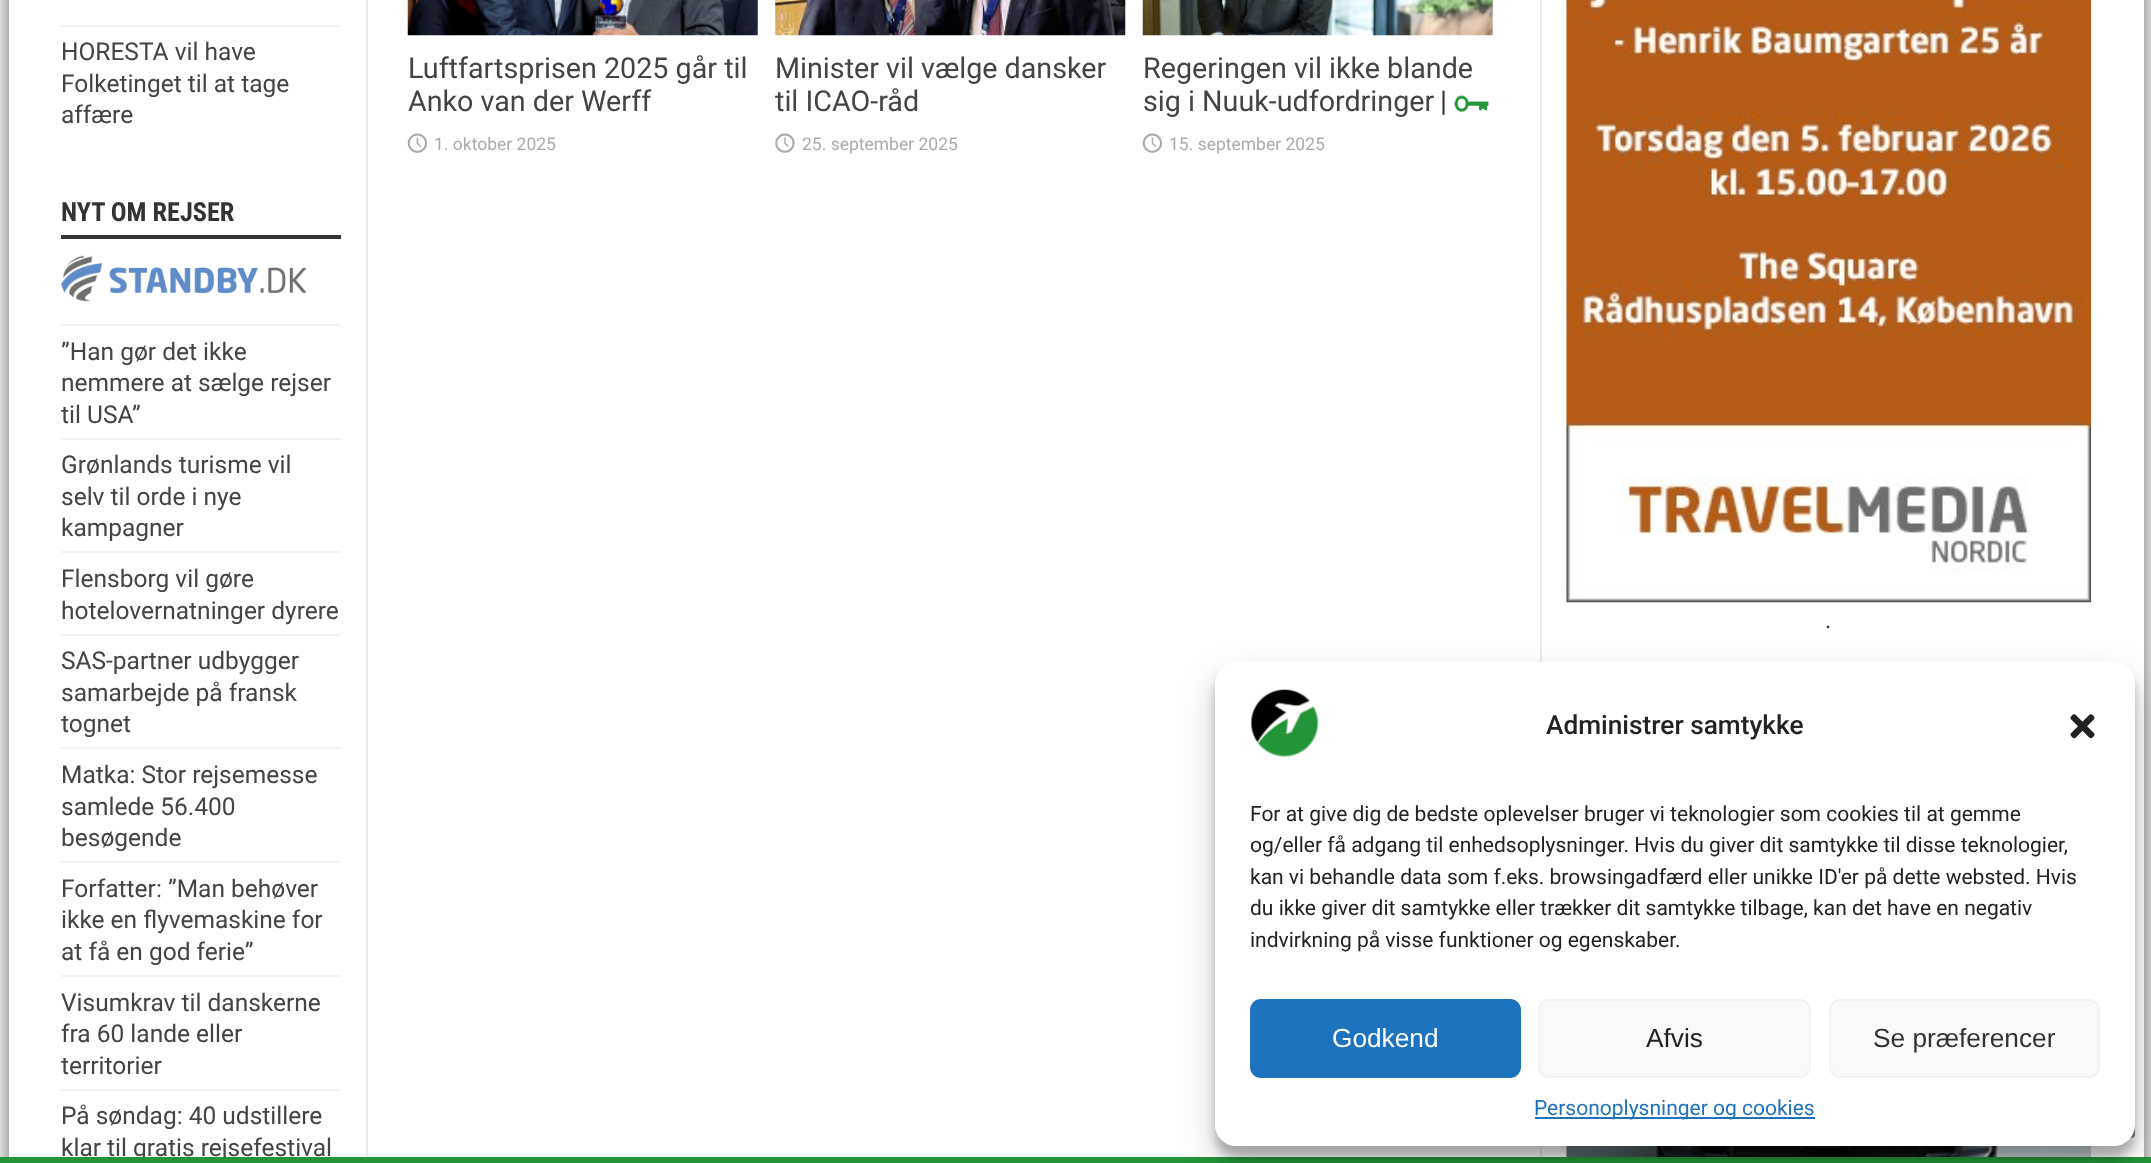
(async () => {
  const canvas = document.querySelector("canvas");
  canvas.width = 2151;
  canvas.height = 1163;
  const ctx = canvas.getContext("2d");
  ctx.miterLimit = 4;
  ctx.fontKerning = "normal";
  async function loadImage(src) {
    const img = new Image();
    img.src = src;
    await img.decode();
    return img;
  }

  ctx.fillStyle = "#ebebeb";
  ctx.fillRect(0, 0, 2151, 1163);
  ctx.fillStyle = "rgba(0, 0, 0, 0.5)";
  ctx.filter = "blur(9px)";
  ctx.beginPath();
  ctx.rect(9, -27, 2135, 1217);
  ctx.fill();
  ctx.filter = "none";
  for (const [x, y, w, h, color] of [
    [9, 0, 2135, 1157, "#ffffff"],
    [366, 0, 2, 1163, "#eaeaea"],
    [61, 25, 280, 2, "#f2f2f2"],
    [61, 235, 280, 4, "#333333"],
  ]) {
    ctx.fillStyle = color;
    ctx.fillRect(x, y, w, h);
  }
  ctx.drawImage(await loadImage("img/1.png"), 61, 255, 246, 47);
  for (const [x, y, w, h, color] of [
    [61, 324, 280, 2, "#f2f2f2"],
    [61, 438, 280, 2, "#f2f2f2"],
    [61, 551, 280, 2, "#f2f2f2"],
    [61, 634, 280, 2, "#f2f2f2"],
    [61, 747, 280, 2, "#f2f2f2"],
    [61, 861, 280, 2, "#f2f2f2"],
    [61, 975, 280, 2, "#f2f2f2"],
    [61, 1089, 280, 2, "#f2f2f2"],
  ]) {
    ctx.fillStyle = color;
    ctx.fillRect(x, y, w, h);
  }
  ctx.drawImage(await loadImage("img/2.png"), 407, 0, 351, 36);
  ctx.drawImage(await loadImage("img/3.png"), 407, 133, 20, 20);
  ctx.drawImage(await loadImage("img/4.png"), 775, 0, 351, 36);
  ctx.drawImage(await loadImage("img/5.png"), 775, 133, 20, 20);
  ctx.drawImage(await loadImage("img/6.png"), 1142, 0, 351, 36);
  ctx.drawImage(await loadImage("img/7.png"), 1454, 95, 35, 18);
  ctx.drawImage(await loadImage("img/3.png"), 1142, 133, 20, 20);
  ctx.fillStyle = "#eaeaea";
  ctx.fillRect(1540, 0, 2, 1163);
  ctx.drawImage(await loadImage("img/8.png"), 1566, 0, 526, 603);
  ctx.drawImage(await loadImage("img/9.png"), 1566, 1146, 526, 11);
  ctx.fillStyle = "rgba(68, 68, 68, 0.7)";
  ctx.beginPath();
  ctx.roundRect(2065, 1068, 70, 70, 4);
  ctx.fill();
  ctx.font = "24.5px Roboto";
  ctx.fillStyle = "#444444";
  for (const [text, x, y] of [
    ["HORESTA vil have", 61, 60],
    ["Folketinget til at tage", 61, 92],
    ["affære", 61, 123],
  ]) {
    ctx.fillText(text, x, y);
  }
  ctx.font = "bold 26.25px Roboto Condensed";
  ctx.fillStyle = "#333333";
  ctx.fillText("NYT OM REJSER", 61, 221);
  ctx.font = "24.5px Roboto";
  ctx.fillStyle = "#444444";
  for (const [text, x, y] of [
    ["”Han gør det ikke", 61, 360],
    ["nemmere at sælge rejser", 61, 391],
    ["til USA”", 61, 423],
    ["Grønlands turisme vil", 61, 473],
    ["selv til orde i nye", 61, 505],
    ["kampagner", 61, 536],
    ["Flensborg vil gøre", 61, 587],
    ["hotelovernatninger dyrere", 61, 619],
    ["SAS-partner udbygger", 61, 669],
    ["samarbejde på fransk", 61, 701],
    ["tognet", 61, 732],
    ["Matka: Stor rejsemesse", 61, 783],
    ["samlede 56.400", 61, 815],
    ["besøgende", 61, 846],
    ["Forfatter: ”Man behøver", 61, 897],
    ["ikke en flyvemaskine for", 61, 928],
    ["at få en god ferie”", 61, 960],
    ["Visumkrav til danskerne", 61, 1011],
    ["fra 60 lande eller", 61, 1042],
    ["territorier", 61, 1074],
    ["På søndag: 40 udstillere", 61, 1124],
    ["klar til gratis rejsefestival", 61, 1156],
  ]) {
    ctx.fillText(text, x, y);
  }
  ctx.font = "28.7px Roboto";
  ctx.fillText("Luftfartsprisen 2025 går til", 408, 78);
  ctx.fillText("Anko van der Werff", 408, 111);
  ctx.font = "17.5px Roboto";
  ctx.fillStyle = "#aaaaaa";
  ctx.fillText("1. oktober 2025", 434, 150);
  ctx.font = "28.7px Roboto";
  ctx.fillStyle = "#444444";
  ctx.fillText("Minister vil vælge dansker", 775, 78);
  ctx.fillText("til ICAO-råd", 775, 111);
  ctx.font = "17.5px Roboto";
  ctx.fillStyle = "#aaaaaa";
  ctx.fillText("25. september 2025", 802, 150);
  ctx.font = "28.7px Roboto";
  ctx.fillStyle = "#444444";
  ctx.fillText("Regeringen vil ikke blande", 1143, 78);
  ctx.fillText("sig i Nuuk-udfordringer", 1143, 111);
  ctx.fillStyle = "#333333";
  ctx.fillText("|", 1440, 111);
  ctx.font = "17.5px Roboto";
  ctx.fillStyle = "#aaaaaa";
  ctx.fillText("15. september 2025", 1169, 150);
  ctx.font = "24.5px Roboto";
  ctx.fillStyle = "#333333";
  ctx.fillText(".", 1825, 628);
  ctx.fillStyle = "#239437";
  ctx.fillRect(0, 1157, 2151, 6);
  ctx.fillStyle = "rgba(0, 0, 0, 0.19)";
  ctx.filter = "blur(17.5px)";
  ctx.beginPath();
  ctx.roundRect(1215, 679, 920, 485, 21);
  ctx.fill();
  ctx.filter = "none";
  ctx.fillStyle = "rgba(0, 0, 0, 0.23)";
  ctx.filter = "blur(5px)";
  ctx.beginPath();
  ctx.roundRect(1215, 672, 920, 485, 21);
  ctx.fill();
  ctx.filter = "none";
  ctx.fillStyle = "#ffffff";
  ctx.beginPath();
  ctx.roundRect(1215, 662, 920, 484, 21);
  ctx.fill();
  ctx.font = "21px Roboto";
  ctx.fillStyle = "#222222";
  for (const [text, x, y] of [
    ["indvirkning på visse funktioner og egenskaber.", 1250, 947],
    ["du ikke giver dit samtykke eller trækker dit samtykke tilbage, kan det have en negativ", 1250, 915],
    ["kan vi behandle data som f.eks. browsingadfærd eller unikke ID'er på dette websted. Hvis", 1250, 884],
    ["og/eller få adgang til enhedsoplysninger. Hvis du giver dit samtykke til disse teknologier,", 1250, 852],
    ["For at give dig de bedste oplevelser bruger vi teknologier som cookies til at gemme", 1250, 821],
  ]) {
    ctx.fillText(text, x, y);
  }
  ctx.drawImage(await loadImage("img/11.png"), 2070, 714, 25, 25);
  ctx.fillStyle = "#1e73be";
  ctx.fillRect(1535, 1117, 280, 2);
  ctx.fillText("Personoplysninger og cookies", 1534, 1115);
  ctx.fillStyle = "#f9f9f9";
  ctx.beginPath();
  ctx.roundRect(1830, 1000, 269, 77, 10);
  ctx.fill();
  ctx.strokeStyle = "#f2f2f2";
  ctx.lineWidth = 2;
  ctx.stroke();
  ctx.font = "26.25px Liberation Sans";
  ctx.fillStyle = "#333333";
  ctx.fillText("Se præferencer", 1873, 1047);
  ctx.fillStyle = "#f9f9f9";
  ctx.beginPath();
  ctx.roundRect(1539, 1000, 271, 77, 10);
  ctx.fill();
  ctx.stroke();
  ctx.fillStyle = "#222222";
  ctx.fillText("Afvis", 1646, 1047);
  ctx.fillStyle = "#1e73be";
  ctx.beginPath();
  ctx.roundRect(1251, 1000, 269, 77, 10);
  ctx.fill();
  ctx.strokeStyle = "#1e73be";
  ctx.stroke();
  ctx.fillStyle = "#ffffff";
  ctx.fillText("Godkend", 1332, 1047);
  ctx.font = "500 26.25px Roboto";
  ctx.fillStyle = "#222222";
  ctx.fillText("Administrer samtykke", 1546, 734);
  ctx.drawImage(await loadImage("img/10.png"), 1250, 689, 69, 69);
})();
